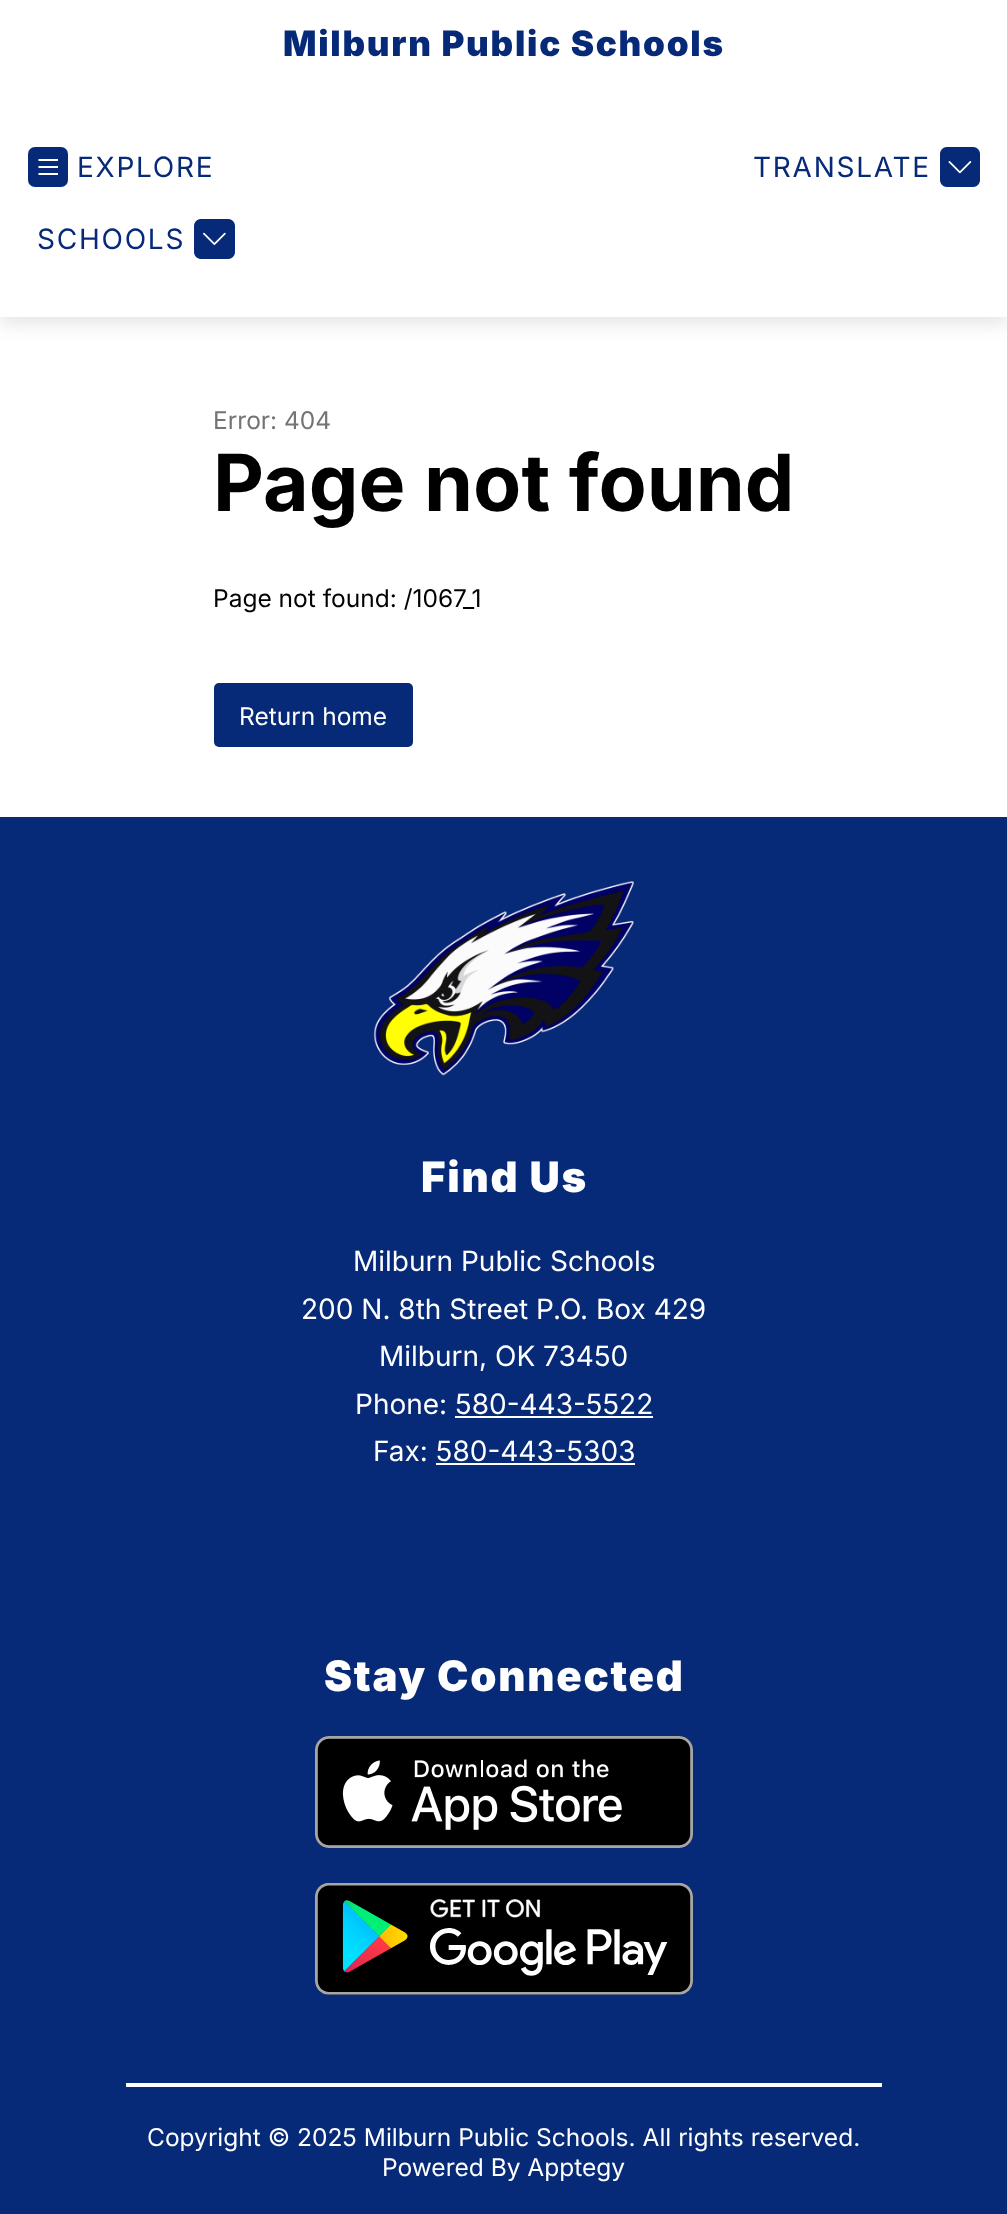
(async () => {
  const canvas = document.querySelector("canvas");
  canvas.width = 1007;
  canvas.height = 2214;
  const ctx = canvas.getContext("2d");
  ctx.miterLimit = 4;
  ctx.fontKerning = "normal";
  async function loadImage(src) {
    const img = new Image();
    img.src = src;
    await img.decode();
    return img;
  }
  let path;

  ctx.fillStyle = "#ffffff";
  ctx.fillRect(0, 0, 1007, 2214);
  ctx.fillStyle = "rgba(0, 0, 0, 0.1)";
  ctx.filter = "blur(9px)";
  ctx.beginPath();
  ctx.rect(0, -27, 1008, 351);
  ctx.fill();
  ctx.filter = "none";
  ctx.fillStyle = "#ffffff";
  ctx.fillRect(0, 0, 1007, 317);
  ctx.fillStyle = "#062a78";
  ctx.beginPath();
  ctx.roundRect(28, 147, 40, 40, 7);
  ctx.fill();
  ctx.fillStyle = "#ffffff";
  path = new Path2D("M38.5 159H58V161H38.5ZM38.5 166H58V168H38.5ZM58 173H38.5V175H58Z");
  ctx.fill(path, "evenodd");
  ctx.drawImage(await loadImage("img/1.png"), 194, 219, 41, 40);
  ctx.drawImage(await loadImage("img/2.png"), 940, 147, 40, 40);
  ctx.fillStyle = "#062a78";
  ctx.beginPath();
  ctx.roundRect(214, 683, 199, 64, 5);
  ctx.fill();
  ctx.fillRect(0, 817, 1007, 1397);
  ctx.drawImage(await loadImage("img/3.png"), 373, 881, 262, 195);
  ctx.fillStyle = "#ffffff";
  ctx.fillRect(455, 1416, 198, 2);
  ctx.fillRect(436, 1463, 199, 2);
  ctx.drawImage(await loadImage("img/4.png"), 315, 1736, 378, 112);
  ctx.drawImage(await loadImage("img/5.png"), 315, 1883, 378, 112);
  ctx.fillRect(126, 2083, 756, 4);
  ctx.letterSpacing = "1.75px";
  ctx.font = "900 35px Inter";
  ctx.fillStyle = "#062a78";
  ctx.fillText("Milburn Public Schools", 283, 56);
  ctx.font = "28px Inter";
  for (const [text, x, y] of [
    ["EXPLORE", 77, 177],
    ["SCHOOLS", 37, 249],
    ["TRANSLATE", 753, 177],
  ]) {
    ctx.fillText(text, x, y);
  }
  ctx.letterSpacing = "0px";
  ctx.font = "24.5px Inter";
  ctx.fillStyle = "#747474";
  ctx.fillText("Error: 404", 213, 429);
  ctx.font = "bold 78.75px Inter";
  ctx.fillStyle = "#000000";
  ctx.fillText("Page not found", 213, 511);
  ctx.font = "24.5px Inter";
  ctx.fillText("Page not found: /1067_1", 213, 607);
  ctx.fillStyle = "#ffffff";
  ctx.fillText("Return home", 239, 725);
  ctx.letterSpacing = "1.75px";
  ctx.font = "900 42px Inter";
  ctx.fillText("Find Us", 421, 1192);
  ctx.letterSpacing = "0px";
  ctx.font = "28px Inter";
  for (const [text, x, y] of [
    ["Milburn Public Schools", 353, 1271],
    ["200 N. 8th Street P.O. Box 429", 301, 1319],
    ["Milburn, OK 73450", 379, 1366],
    ["Phone: 580-443-5522", 355, 1414],
    ["Fax: 580-443-5303", 373, 1461],
  ]) {
    ctx.fillText(text, x, y);
  }
  ctx.letterSpacing = "1.75px";
  ctx.font = "900 42px Inter";
  ctx.fillText("Stay Connected", 324, 1691);
  ctx.letterSpacing = "0px";
  ctx.font = "24.5px Inter";
  ctx.fillText("Copyright © 2025 Milburn Public Schools. All rights reserved.", 147, 2146);
  ctx.fillText("Powered By Apptegy", 382, 2176);
})();
